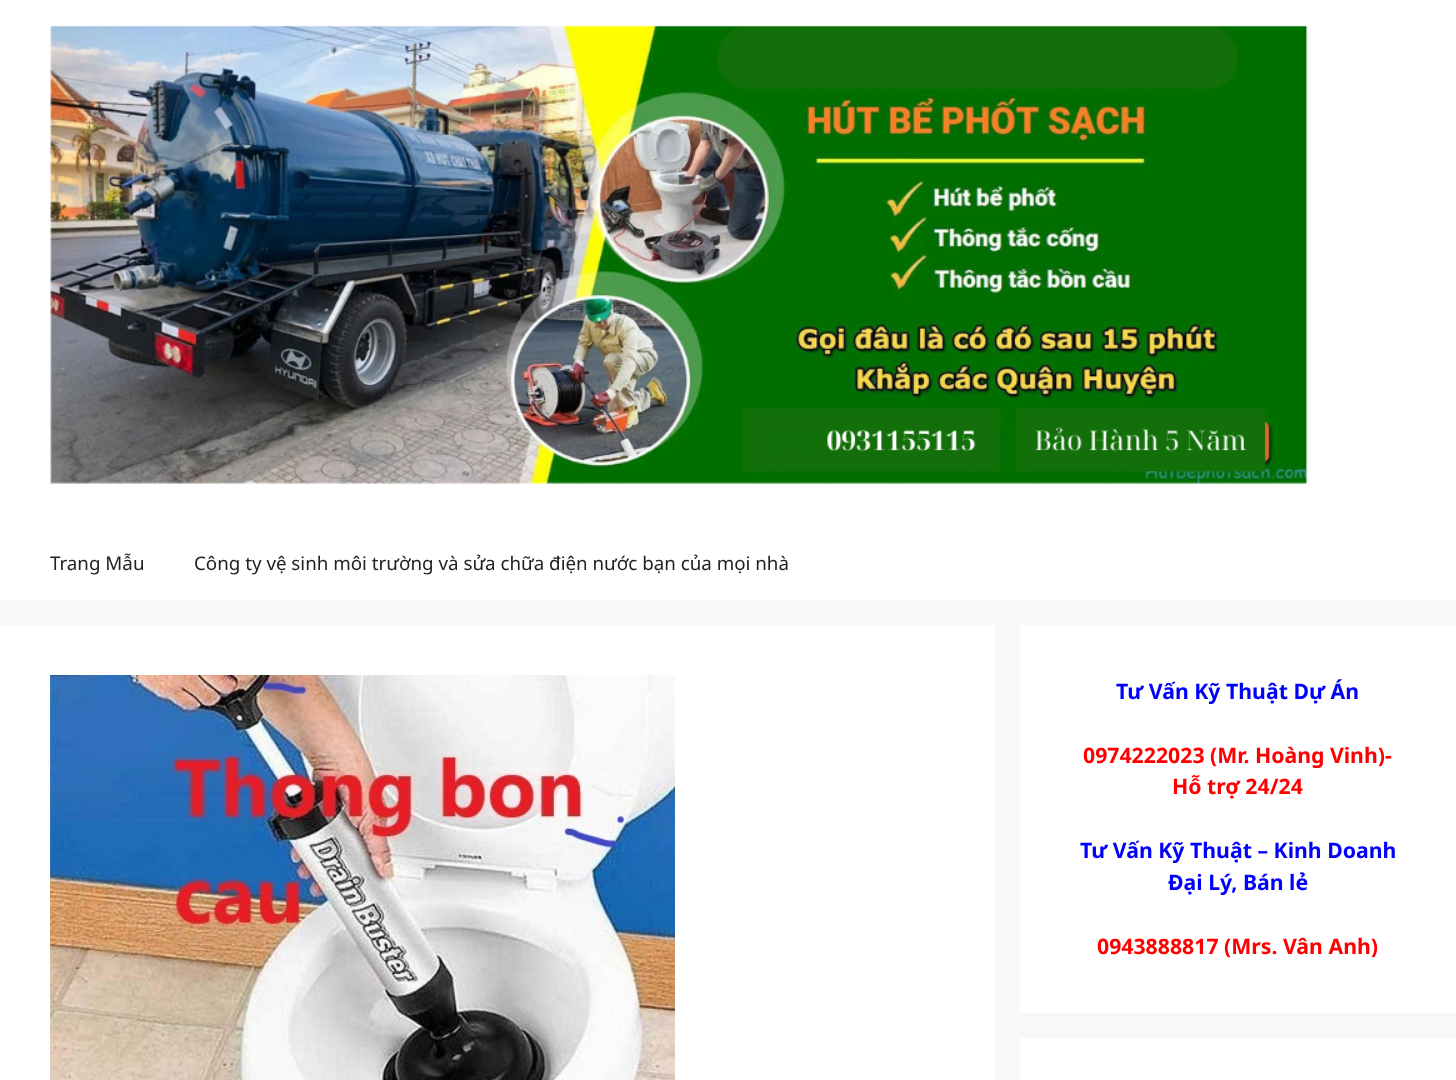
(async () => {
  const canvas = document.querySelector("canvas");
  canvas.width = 1456;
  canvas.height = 1080;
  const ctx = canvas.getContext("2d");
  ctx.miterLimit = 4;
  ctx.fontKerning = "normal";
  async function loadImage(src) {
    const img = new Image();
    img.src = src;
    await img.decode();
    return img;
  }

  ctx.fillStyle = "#f7f8f9";
  ctx.fillRect(0, 0, 1456, 1080);
  ctx.fillStyle = "#ffffff";
  ctx.fillRect(0, 0, 1456, 600);
  ctx.drawImage(await loadImage("img/1.png"), 50, 25, 1258, 459);
  ctx.fillRect(0, 625, 995, 455);
  ctx.drawImage(await loadImage("img/2.png"), 50, 675, 625, 405);
  ctx.fillRect(1020, 625, 436, 388);
  ctx.fillRect(1020, 1038, 436, 42);
  ctx.font = "18.75px Noto Sans";
  ctx.fillStyle = "#222222";
  ctx.fillText("Trang Mẫu", 50, 570);
  ctx.fillText("Công ty vệ sinh môi trường và sửa chữa điện nước bạn của mọi nhà", 194, 570);
  ctx.font = "bold 21.25px Noto Sans";
  ctx.fillStyle = "#0000ff";
  ctx.fillText("Tư Vấn Kỹ Thuật Dự Án", 1116, 699);
  ctx.fillStyle = "#ff0000";
  ctx.fillText("0974222023 (Mr. Hoàng Vinh)-", 1083, 763);
  ctx.fillText("Hỗ trợ 24/24", 1172, 794);
  ctx.fillStyle = "#0000ff";
  ctx.fillText("Tư Vấn Kỹ Thuật – Kinh Doanh", 1080, 858);
  ctx.fillText("Đại Lý, Bán lẻ", 1168, 890);
  ctx.fillStyle = "#ff0000";
  ctx.fillText("0943888817 (Mrs. Vân Anh)", 1097, 954);
})();
